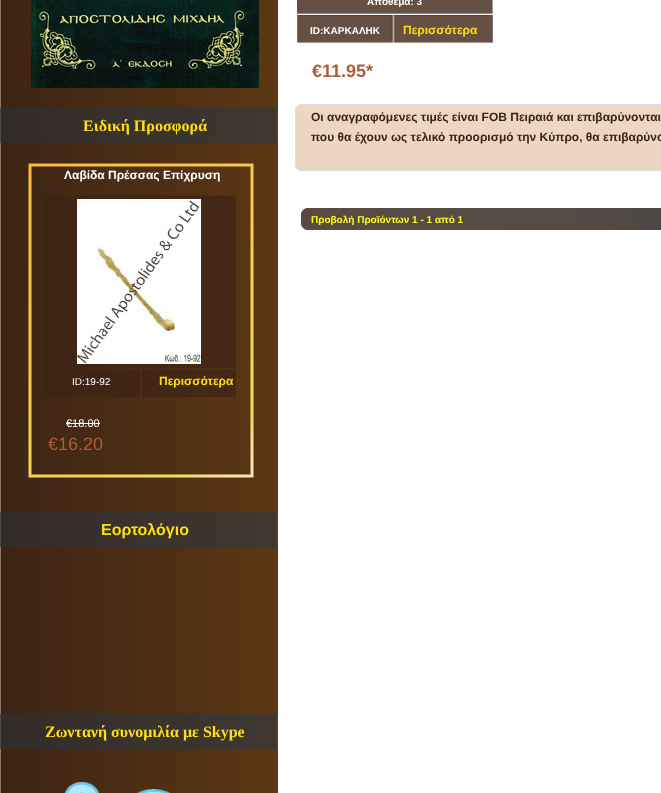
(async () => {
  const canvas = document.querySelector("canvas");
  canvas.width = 661;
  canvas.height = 793;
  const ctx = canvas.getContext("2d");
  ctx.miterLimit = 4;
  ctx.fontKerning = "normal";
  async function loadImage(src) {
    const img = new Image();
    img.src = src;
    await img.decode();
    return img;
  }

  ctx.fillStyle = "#ffffff";
  ctx.fillRect(0, 0, 661, 793);
  ctx.drawImage(await loadImage("img/1.png"), 1, 0, 277, 793);
  ctx.fillStyle = "#897569";
  ctx.fillRect(0, 0, 1, 793);
  ctx.drawImage(await loadImage("img/2.png"), 31, 0, 228, 88);
  ctx.drawImage(await loadImage("img/3.png"), 0, 108, 278, 35);
  ctx.drawImage(await loadImage("img/4.png"), 28, 163, 226, 315);
  ctx.drawImage(await loadImage("img/5.png"), 43, 195, 193, 202);
  ctx.drawImage(await loadImage("img/6.png"), 77, 199, 124, 165);
  ctx.fillStyle = "#ffffff";
  ctx.fillRect(66, 423, 34, 1);
  ctx.drawImage(await loadImage("img/3.png"), 0, 512, 278, 35);
  ctx.drawImage(await loadImage("img/3.png"), 0, 714, 278, 35);
  ctx.drawImage(await loadImage("img/7.png"), 64, 782, 106, 11);
  ctx.drawImage(await loadImage("img/8.png"), 297, 0, 196, 43);
  ctx.fillStyle = "#ecd7c3";
  ctx.beginPath();
  ctx.roundRect(295.5, 104.5, 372, 66, 5.5);
  ctx.fill();
  ctx.strokeStyle = "#dddddd";
  ctx.stroke();
  ctx.drawImage(await loadImage("img/9.png"), 301, 208, 360, 22);
  ctx.font = "bold 16px Liberation Serif";
  ctx.fillStyle = "#ffde17";
  ctx.fillText("Ειδική Προσφορά", 83, 131);
  ctx.font = "bold 12px Liberation Sans";
  ctx.fillStyle = "#ffffff";
  ctx.fillText("Λαβίδα Πρέσσας Επίχρυση", 64, 179);
  ctx.font = "10px Liberation Sans";
  ctx.fillText("ID:19-92", 72, 385);
  ctx.font = "bold 12px Liberation Sans";
  ctx.fillStyle = "#ffde17";
  ctx.fillText("Περισσότερα", 159, 385);
  ctx.font = "11px Liberation Sans";
  ctx.fillStyle = "#ffffff";
  ctx.fillText("€18.00", 66, 427);
  ctx.font = "18px Liberation Sans";
  ctx.fillStyle = "#ab5e38";
  ctx.fillText("€16.20", 48, 450);
  ctx.font = "bold 16px Liberation Sans";
  ctx.fillStyle = "#ffde17";
  ctx.fillText("Εορτολόγιο", 101, 535);
  ctx.font = "bold 16px Liberation Serif";
  ctx.fillText("Ζωντανή συνομιλία με Skype", 45, 737);
  ctx.font = "bold 10px Liberation Sans";
  ctx.fillStyle = "#ffffff";
  ctx.fillText("Απόθεμα: 3", 367, 5);
  ctx.fillText("ID:ΚΑΡΚΑΛΗΚ", 310, 34);
  ctx.font = "bold 12px Liberation Sans";
  ctx.fillStyle = "#ffde17";
  ctx.fillText("Περισσότερα", 403, 34);
  ctx.font = "bold 18px Liberation Sans";
  ctx.fillStyle = "#ab5e38";
  ctx.fillText("€11.95*", 312, 77);
  ctx.font = "bold 12px Liberation Sans";
  ctx.fillStyle = "#3c2415";
  ctx.fillText("Οι αναγραφόμενες τιμές είναι FOB Πειραιά και επιβαρύνονται", 311, 121);
  ctx.fillText("που θα έχουν ως τελικό προορισμό την Κύπρο, θα επιβαρύνο", 311, 141);
  ctx.font = "bold 10px Liberation Sans";
  ctx.fillStyle = "#ffff22";
  ctx.fillText("Προβολή Προϊόντων 1 - 1 από 1", 311, 223);
})();
